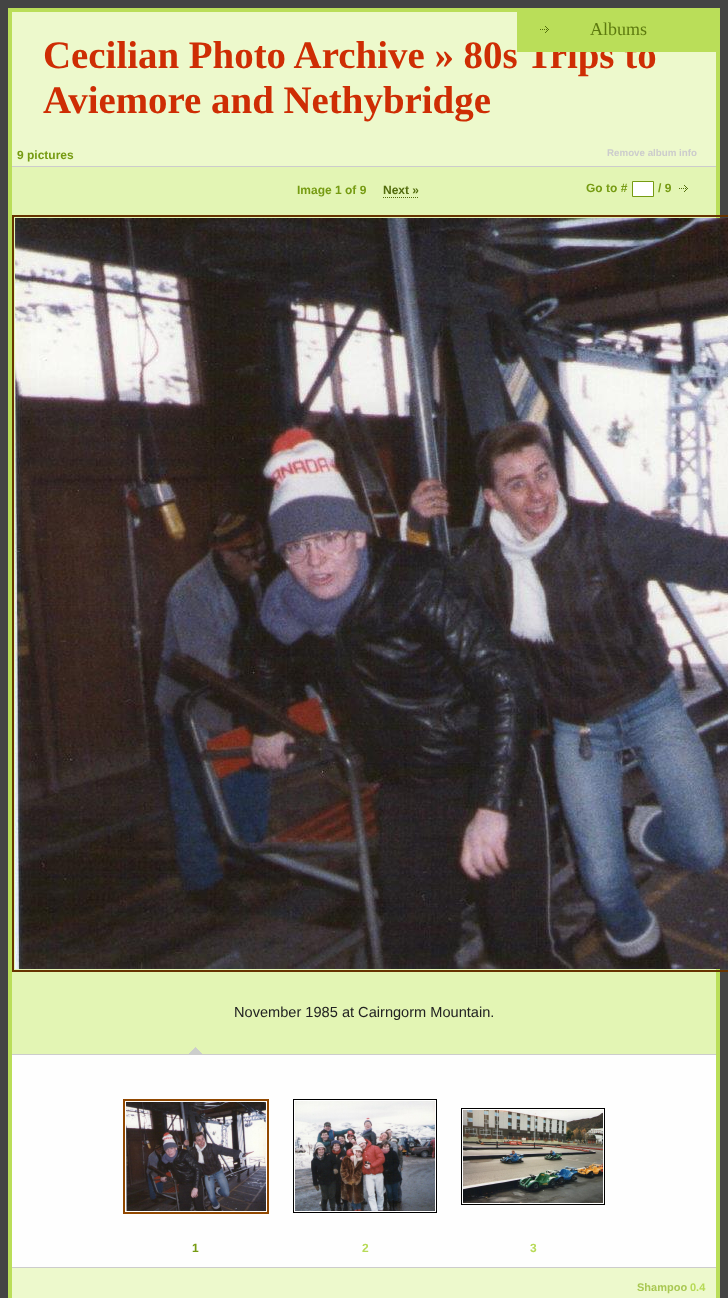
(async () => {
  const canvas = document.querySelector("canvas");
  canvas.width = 728;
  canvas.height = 1298;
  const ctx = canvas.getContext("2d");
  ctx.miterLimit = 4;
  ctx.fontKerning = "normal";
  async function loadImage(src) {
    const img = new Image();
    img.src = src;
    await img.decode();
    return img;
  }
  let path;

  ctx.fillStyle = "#444444";
  ctx.fillRect(0, 0, 728, 1298);
  ctx.fillStyle = "#edf9cc";
  ctx.beginPath();
  ctx.rect(10, 10, 708, 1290);
  ctx.fill();
  ctx.strokeStyle = "#bade59";
  ctx.lineWidth = 4;
  ctx.stroke();
  ctx.fillStyle = "#e3f5b4";
  ctx.fillRect(12, 167, 704, 887);
  ctx.fillStyle = "#cccccc";
  ctx.fillRect(12, 166, 704, 1);
  path = new Path2D("M383 197.5H419");
  ctx.strokeStyle = "#526c0d";
  ctx.lineWidth = 1;
  ctx.setLineDash([1, 1]);
  ctx.stroke(path);
  ctx.fillStyle = "#ffffff";
  ctx.beginPath();
  ctx.rect(632.5, 181.5, 21, 15);
  ctx.fill();
  ctx.strokeStyle = "#769b12";
  ctx.setLineDash([]);
  ctx.stroke();
  ctx.drawImage(await loadImage("img/2.png"), 679, 185, 9, 7);
  ctx.strokeStyle = "#663300";
  ctx.lineWidth = 2;
  ctx.strokeRect(13, 216, 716, 755);
  ctx.drawImage(await loadImage("img/3.png"), 15, 218, 713, 751);
  for (const [x, y, w, h, color] of [
    [12, 1055, 704, 212, "#fefefe"],
    [12, 1054, 704, 1, "#cccccc"],
    [12, 1267, 704, 1, "#cccccc"],
  ]) {
    ctx.fillStyle = color;
    ctx.fillRect(x, y, w, h);
  }
  ctx.drawImage(await loadImage("img/4.png"), 189, 1047, 13, 7);
  ctx.strokeStyle = "#914800";
  ctx.strokeRect(124, 1100, 144, 113);
  ctx.drawImage(await loadImage("img/5.png"), 126, 1102, 140, 109);
  ctx.strokeStyle = "#000000";
  ctx.lineWidth = 1;
  ctx.strokeRect(293.5, 1099.5, 143, 113);
  ctx.drawImage(await loadImage("img/6.png"), 295, 1101, 140, 110);
  ctx.strokeRect(461.5, 1108.5, 143, 96);
  ctx.drawImage(await loadImage("img/7.png"), 463, 1110, 140, 93);
  ctx.font = "bold 38.9px Liberation Serif";
  ctx.fillStyle = "#ce2d04";
  ctx.fillText("Cecilian Photo Archive » 80s Trips to", 43, 68);
  ctx.strokeStyle = "#bade59";
  ctx.lineWidth = 4;
  ctx.strokeRect(519, 10, 199, 40);
  ctx.fillStyle = "#bade59";
  ctx.fillRect(521, 12, 195, 36);
  ctx.font = "18px Liberation Serif";
  ctx.fillStyle = "#5d7a0e";
  ctx.fillText("Albums", 590, 35);
  ctx.drawImage(await loadImage("img/1.png"), 540, 26, 9, 7);
  ctx.font = "bold 38.9px Liberation Serif";
  ctx.fillStyle = "#ce2d04";
  ctx.fillText("Aviemore and Nethybridge", 43, 113);
  ctx.font = "bold 12px Liberation Sans";
  ctx.fillStyle = "#769b12";
  ctx.fillText("9 pictures", 17, 159);
  ctx.font = "bold 9.75px Liberation Sans";
  ctx.fillStyle = "#cccccc";
  ctx.fillText("Remove album info", 607, 156);
  ctx.font = "bold 12px Liberation Sans";
  ctx.fillStyle = "#769b12";
  ctx.fillText("Image 1 of 9", 297, 194);
  ctx.fillStyle = "#526c0d";
  ctx.fillText("Next »", 383, 194);
  ctx.fillStyle = "#769b12";
  ctx.fillText("Go to #", 586, 192);
  ctx.fillText("/ 9", 658, 192);
  ctx.font = "14.6px Liberation Sans";
  ctx.fillStyle = "#222222";
  ctx.fillText("November 1985 at Cairngorm Mountain.", 234, 1017);
  ctx.font = "bold 12px Liberation Sans";
  ctx.fillStyle = "#769b12";
  ctx.fillText("1", 192, 1252);
  ctx.fillStyle = "#b7da57";
  ctx.fillText("2", 362, 1252);
  ctx.fillText("3", 530, 1252);
  ctx.font = "bold 11px Liberation Sans";
  ctx.fillStyle = "#a9c853";
  ctx.fillText("Shampoo", 637, 1291);
  ctx.fillStyle = "#b7da57";
  ctx.fillText("0.4", 690, 1291);
})();
